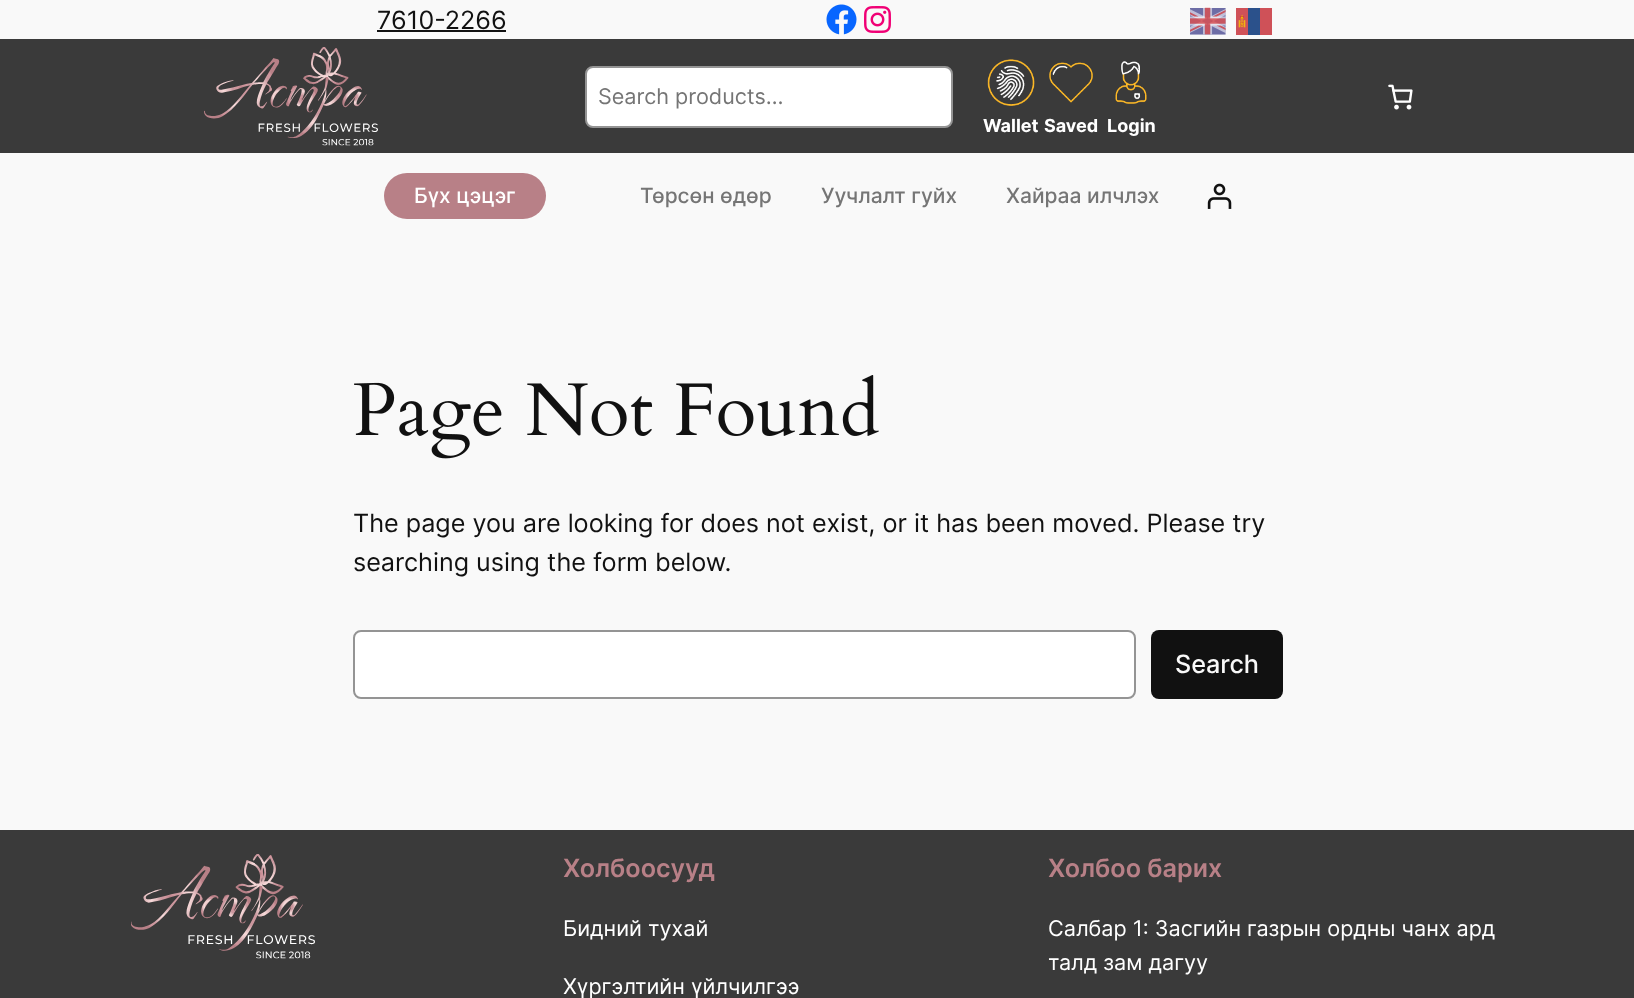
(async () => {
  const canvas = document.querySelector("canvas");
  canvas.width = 1634;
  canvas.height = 998;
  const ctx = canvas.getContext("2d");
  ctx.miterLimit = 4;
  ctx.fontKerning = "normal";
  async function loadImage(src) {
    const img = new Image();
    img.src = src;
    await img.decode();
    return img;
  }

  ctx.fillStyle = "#f9f9f9";
  ctx.fillRect(0, 0, 1634, 998);
  ctx.fillStyle = "#111111";
  ctx.fillRect(377, 30, 129, 2);
  ctx.drawImage(await loadImage("img/1.png"), 826, 4, 31, 31);
  ctx.drawImage(await loadImage("img/2.png"), 864, 6, 27, 27);
  ctx.drawImage(await loadImage("img/3.png"), 1190, 7, 36, 28);
  ctx.drawImage(await loadImage("img/4.png"), 1236, 8, 36, 27);
  ctx.fillStyle = "#3a3a3a";
  ctx.fillRect(0, 39, 1634, 114);
  ctx.drawImage(await loadImage("img/5.png"), 204, 47, 174, 99);
  ctx.fillStyle = "#ffffff";
  ctx.beginPath();
  ctx.roundRect(586, 67, 366, 60, 7);
  ctx.fill();
  ctx.strokeStyle = "#949494";
  ctx.lineWidth = 2;
  ctx.stroke();
  ctx.drawImage(await loadImage("img/6.png"), 1388, 84, 25, 26);
  ctx.drawImage(await loadImage("img/7.png"), 987, 59, 48, 47);
  ctx.drawImage(await loadImage("img/8.png"), 1049, 62, 44, 41);
  ctx.drawImage(await loadImage("img/9.png"), 1115, 61, 32, 43);
  ctx.fillStyle = "#b88087";
  ctx.beginPath();
  ctx.roundRect(384, 173, 162, 46, 23);
  ctx.fill();
  ctx.drawImage(await loadImage("img/10.png"), 1207, 183, 25, 26);
  ctx.drawImage(await loadImage("img/11.png"), 354, 375, 525, 84);
  ctx.fillStyle = "#ffffff";
  ctx.beginPath();
  ctx.roundRect(354, 631, 781, 67, 7);
  ctx.fill();
  ctx.stroke();
  ctx.fillStyle = "#111111";
  ctx.beginPath();
  ctx.roundRect(1151, 630, 132, 69, 8);
  ctx.fill();
  ctx.fillStyle = "#3a3a3a";
  ctx.fillRect(0, 830, 1634, 168);
  ctx.drawImage(await loadImage("img/12.png"), 131, 854, 184, 105);
  ctx.font = "25.2px Inter";
  ctx.fillStyle = "#111111";
  ctx.fillText("7610-2266", 377, 29);
  ctx.font = "21.6px Inter";
  ctx.fillStyle = "#757575";
  ctx.fillText("Search products…", 598, 104);
  ctx.font = "bold 18px Inter";
  ctx.fillStyle = "#ffffff";
  for (const [text, x, y] of [
    ["Wallet", 983, 132],
    ["Saved", 1044, 132],
    ["Login", 1107, 132],
  ]) {
    ctx.fillText(text, x, y);
  }
  ctx.font = "500 21px Inter";
  ctx.fillText("Бүх цэцэг", 414, 203);
  ctx.fillStyle = "#757575";
  for (const [text, x, y] of [
    ["Төрсөн өдөр", 640, 203],
    ["Уучлалт гуйх", 821, 203],
    ["Хайраа илчлэх", 1006, 203],
  ]) {
    ctx.fillText(text, x, y);
  }
  ctx.font = "25.2px Inter";
  ctx.fillStyle = "#111111";
  ctx.fillText("The page you are looking for does not exist, or it has been moved. Please try", 353, 532);
  ctx.fillText("searching using the form below.", 353, 571);
  ctx.font = "500 25.2px Inter";
  ctx.fillStyle = "#f9f9f9";
  ctx.fillText("Search", 1175, 673);
  ctx.font = "600 25.2px Inter";
  ctx.fillStyle = "#b88087";
  ctx.fillText("Холбоосууд", 563, 877);
  ctx.font = "21.6px Inter";
  ctx.fillStyle = "#ffffff";
  ctx.fillText("Бидний тухай", 563, 936);
  ctx.fillText("Хүргэлтийн үйлчилгээ", 563, 994);
  ctx.font = "600 25.2px Inter";
  ctx.fillStyle = "#b88087";
  ctx.fillText("Холбоо барих", 1048, 877);
  ctx.font = "21.6px Inter";
  ctx.fillStyle = "#ffffff";
  ctx.fillText("Салбар 1: Засгийн газрын ордны чанх ард", 1048, 936);
  ctx.fillText("талд зам дагуу", 1048, 970);
})();
